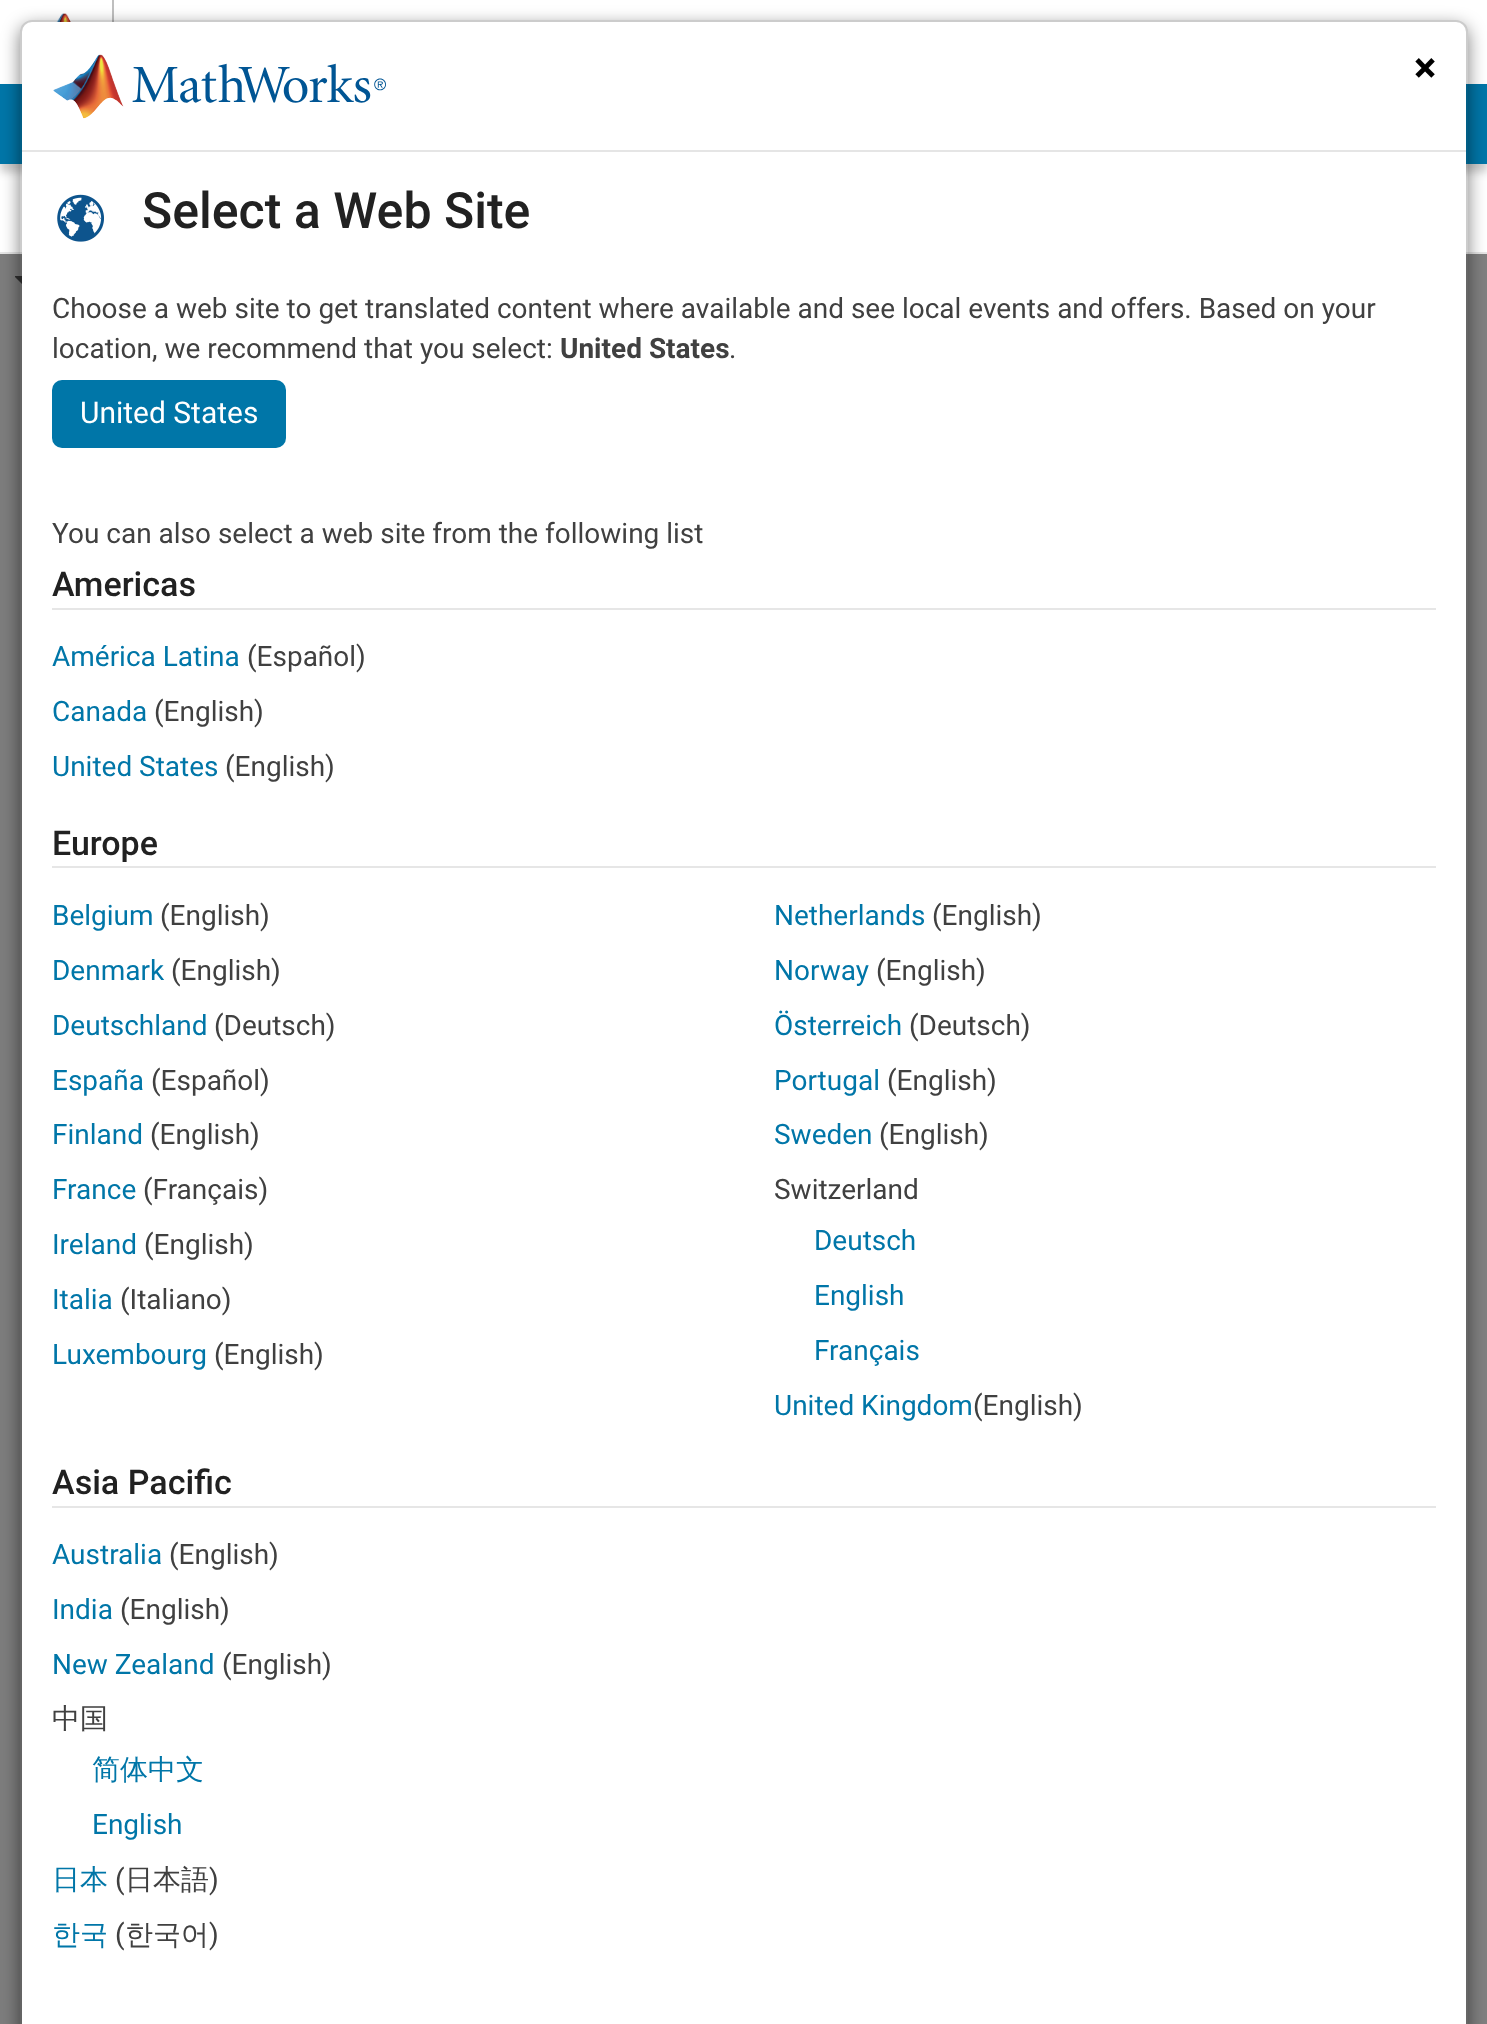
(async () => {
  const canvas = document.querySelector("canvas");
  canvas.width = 1487;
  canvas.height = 2024;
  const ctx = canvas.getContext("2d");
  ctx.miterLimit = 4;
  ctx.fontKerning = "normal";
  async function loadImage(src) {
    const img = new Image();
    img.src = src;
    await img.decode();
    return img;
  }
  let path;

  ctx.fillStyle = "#808080";
  ctx.fillRect(0, 0, 1487, 2024);
  ctx.fillStyle = "#ffffff";
  ctx.fillRect(0, 0, 1487, 84);
  ctx.fillStyle = "#bfbfbf";
  ctx.fillRect(112, 0, 2, 22);
  ctx.drawImage(await loadImage("img/1.png"), 56, 13, 15, 9);
  ctx.fillStyle = "#ffffff";
  ctx.fillRect(0, 164, 1487, 88);
  ctx.fillStyle = "rgba(0, 0, 0, 0.2)";
  ctx.filter = "blur(4px)";
  ctx.beginPath();
  ctx.rect(0, 92, 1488, 80);
  ctx.fill();
  ctx.filter = "none";
  for (const [x, y, w, h, color] of [
    [0, 84, 1487, 80, "#0076a8"],
    [0, 252, 1487, 2, "#e6e6e6"],
    [0, 254, 22, 1770, "#7d7d7d"],
  ]) {
    ctx.fillStyle = color;
    ctx.fillRect(x, y, w, h);
  }
  ctx.fillStyle = "#313131";
  path = new Path2D("M56 276H15V277L31 293V309C32 311 36 313 37 315C40 318 41 319 41 317V293L57 277C57 276 57 276 56 276Z");
  ctx.fill(path);
  ctx.save();
  path = new Path2D("M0 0H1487V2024H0ZM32 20H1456C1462.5 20 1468 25.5 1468 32V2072C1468 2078.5 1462.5 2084 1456 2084H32C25.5 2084 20 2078.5 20 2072V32C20 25.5 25.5 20 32 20Z");
  ctx.clip(path, "evenodd");
  ctx.fillStyle = "rgba(0, 0, 0, 0.5)";
  ctx.filter = "blur(9px)";
  ctx.beginPath();
  ctx.roundRect(20, 26, 1448, 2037, 12);
  ctx.fill();
  ctx.filter = "none";
  ctx.restore();
  ctx.fillStyle = "#ffffff";
  ctx.beginPath();
  ctx.roundRect(22, 22, 1444, 2002, [10, 10, 0, 0]);
  ctx.fill();
  ctx.beginPath();
  ctx.roundRect(21, 21, 1446, 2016, 11);
  ctx.strokeStyle = "rgba(0, 0, 0, 0.2)";
  ctx.lineWidth = 2;
  ctx.stroke();
  ctx.fillStyle = "#e5e5e5";
  ctx.fillRect(22, 150, 1444, 2);
  ctx.drawImage(await loadImage("img/2.png"), 53, 54, 333, 65);
  ctx.drawImage(await loadImage("img/3.png"), 57, 194, 47, 48);
  ctx.fillStyle = "#0076a8";
  ctx.beginPath();
  ctx.roundRect(52, 380, 234, 68, 10);
  ctx.fill();
  for (const [x, y, w, h, color] of [
    [52, 608, 1384, 2, "#e6e6e6"],
    [52, 866, 1384, 2, "#e6e6e6"],
    [52, 1506, 1384, 2, "#e6e6e6"],
  ]) {
    ctx.fillStyle = color;
    ctx.fillRect(x, y, w, h);
  }
  ctx.font = "bold 42px Roboto";
  ctx.fillStyle = "#000000";
  ctx.fillText("×", 1414, 82);
  ctx.font = "500 50px Roboto";
  ctx.fillStyle = "#212121";
  ctx.fillText("Select a Web Site", 142, 228);
  ctx.font = "28px Roboto";
  ctx.fillStyle = "#404040";
  ctx.fillText("Choose a web site to get translated content where available and see local events and offers. Based on your", 52, 318);
  ctx.fillText("location, we recommend that you select:", 52, 358);
  ctx.font = "bold 28px Roboto";
  ctx.fillText("United States", 560, 358);
  ctx.font = "28px Roboto";
  ctx.fillText(".", 729, 358);
  ctx.font = "30px Roboto";
  ctx.fillStyle = "#ffffff";
  ctx.fillText("United States", 80, 423);
  ctx.font = "28px Roboto";
  ctx.fillStyle = "#404040";
  ctx.fillText("You can also select a web site from the following list", 52, 543);
  ctx.font = "500 34px Roboto";
  ctx.fillStyle = "#212121";
  ctx.fillText("Americas", 52, 596);
  ctx.font = "28px Roboto";
  ctx.fillStyle = "#0076a8";
  ctx.fillText("América Latina", 52, 666);
  ctx.fillStyle = "#404040";
  ctx.fillText("(Español)", 247, 666);
  ctx.fillStyle = "#0076a8";
  ctx.fillText("Canada", 52, 721);
  ctx.fillStyle = "#404040";
  ctx.fillText("(English)", 154, 721);
  ctx.fillStyle = "#0076a8";
  ctx.fillText("United States", 52, 776);
  ctx.fillStyle = "#404040";
  ctx.fillText("(English)", 225, 776);
  ctx.font = "500 34px Roboto";
  ctx.fillStyle = "#212121";
  ctx.fillText("Europe", 52, 855);
  ctx.font = "28px Roboto";
  ctx.fillStyle = "#0076a8";
  ctx.fillText("Belgium", 52, 925);
  ctx.fillStyle = "#404040";
  ctx.fillText("(English)", 160, 925);
  ctx.fillStyle = "#0076a8";
  ctx.fillText("Denmark", 52, 980);
  ctx.fillStyle = "#404040";
  ctx.fillText("(English)", 171, 980);
  ctx.fillStyle = "#0076a8";
  ctx.fillText("Deutschland", 52, 1035);
  ctx.fillStyle = "#404040";
  ctx.fillText("(Deutsch)", 214, 1035);
  ctx.fillStyle = "#0076a8";
  ctx.fillText("España", 52, 1090);
  ctx.fillStyle = "#404040";
  ctx.fillText("(Español)", 151, 1090);
  ctx.fillStyle = "#0076a8";
  ctx.fillText("Finland", 52, 1144);
  ctx.fillStyle = "#404040";
  ctx.fillText("(English)", 150, 1144);
  ctx.fillStyle = "#0076a8";
  ctx.fillText("France", 52, 1199);
  ctx.fillStyle = "#404040";
  ctx.fillText("(Français)", 143, 1199);
  ctx.fillStyle = "#0076a8";
  ctx.fillText("Ireland", 52, 1254);
  ctx.fillStyle = "#404040";
  ctx.fillText("(English)", 144, 1254);
  ctx.fillStyle = "#0076a8";
  ctx.fillText("Italia", 52, 1309);
  ctx.fillStyle = "#404040";
  ctx.fillText("(Italiano)", 120, 1309);
  ctx.fillStyle = "#0076a8";
  ctx.fillText("Luxembourg", 52, 1364);
  ctx.fillStyle = "#404040";
  ctx.fillText("(English)", 214, 1364);
  ctx.fillStyle = "#0076a8";
  ctx.fillText("Netherlands", 774, 925);
  ctx.fillStyle = "#404040";
  ctx.fillText("(English)", 932, 925);
  ctx.fillStyle = "#0076a8";
  ctx.fillText("Norway", 774, 980);
  ctx.fillStyle = "#404040";
  ctx.fillText("(English)", 876, 980);
  ctx.fillStyle = "#0076a8";
  ctx.fillText("Österreich", 774, 1035);
  ctx.fillStyle = "#404040";
  ctx.fillText("(Deutsch)", 909, 1035);
  ctx.fillStyle = "#0076a8";
  ctx.fillText("Portugal", 774, 1090);
  ctx.fillStyle = "#404040";
  ctx.fillText("(English)", 887, 1090);
  ctx.fillStyle = "#0076a8";
  ctx.fillText("Sweden", 774, 1144);
  ctx.fillStyle = "#404040";
  ctx.fillText("(English)", 879, 1144);
  ctx.fillText("Switzerland", 774, 1199);
  ctx.fillStyle = "#0076a8";
  for (const [text, x, y] of [
    ["Deutsch", 814, 1250],
    ["English", 814, 1305],
    ["Français", 814, 1360],
    ["United Kingdom", 774, 1415],
  ]) {
    ctx.fillText(text, x, y);
  }
  ctx.fillStyle = "#404040";
  ctx.fillText("(English)", 973, 1415);
  ctx.font = "500 34px Roboto";
  ctx.fillStyle = "#212121";
  ctx.fillText("Asia Pacific", 52, 1494);
  ctx.font = "28px Roboto";
  ctx.fillStyle = "#0076a8";
  ctx.fillText("Australia", 52, 1564);
  ctx.fillStyle = "#404040";
  ctx.fillText("(English)", 169, 1564);
  ctx.fillStyle = "#0076a8";
  ctx.fillText("India", 52, 1619);
  ctx.fillStyle = "#404040";
  ctx.fillText("(English)", 120, 1619);
  ctx.fillStyle = "#0076a8";
  ctx.fillText("New Zealand", 52, 1674);
  ctx.fillStyle = "#404040";
  ctx.fillText("(English)", 222, 1674);
  ctx.font = "500 28px WenQuanYi Zen Hei";
  ctx.fillText("中国", 52, 1728);
  ctx.fillStyle = "#0076a8";
  ctx.fillText("简体中文", 92, 1779);
  ctx.font = "28px Roboto";
  ctx.fillText("English", 92, 1834);
  ctx.font = "500 28px WenQuanYi Zen Hei";
  ctx.fillText("日本", 52, 1889);
  ctx.font = "28px Roboto";
  ctx.fillStyle = "#404040";
  ctx.fillText("(", 115, 1889);
  ctx.font = "500 28px WenQuanYi Zen Hei";
  ctx.fillText("日本語", 125, 1889);
  ctx.font = "28px Roboto";
  ctx.fillText(")", 209, 1889);
  ctx.font = "500 28px WenQuanYi Zen Hei";
  ctx.fillStyle = "#0076a8";
  ctx.fillText("한국", 52, 1944);
  ctx.font = "28px Roboto";
  ctx.fillStyle = "#404040";
  ctx.fillText("(", 115, 1944);
  ctx.font = "500 28px WenQuanYi Zen Hei";
  ctx.fillText("한국어", 125, 1944);
  ctx.font = "28px Roboto";
  ctx.fillText(")", 209, 1944);
})();
